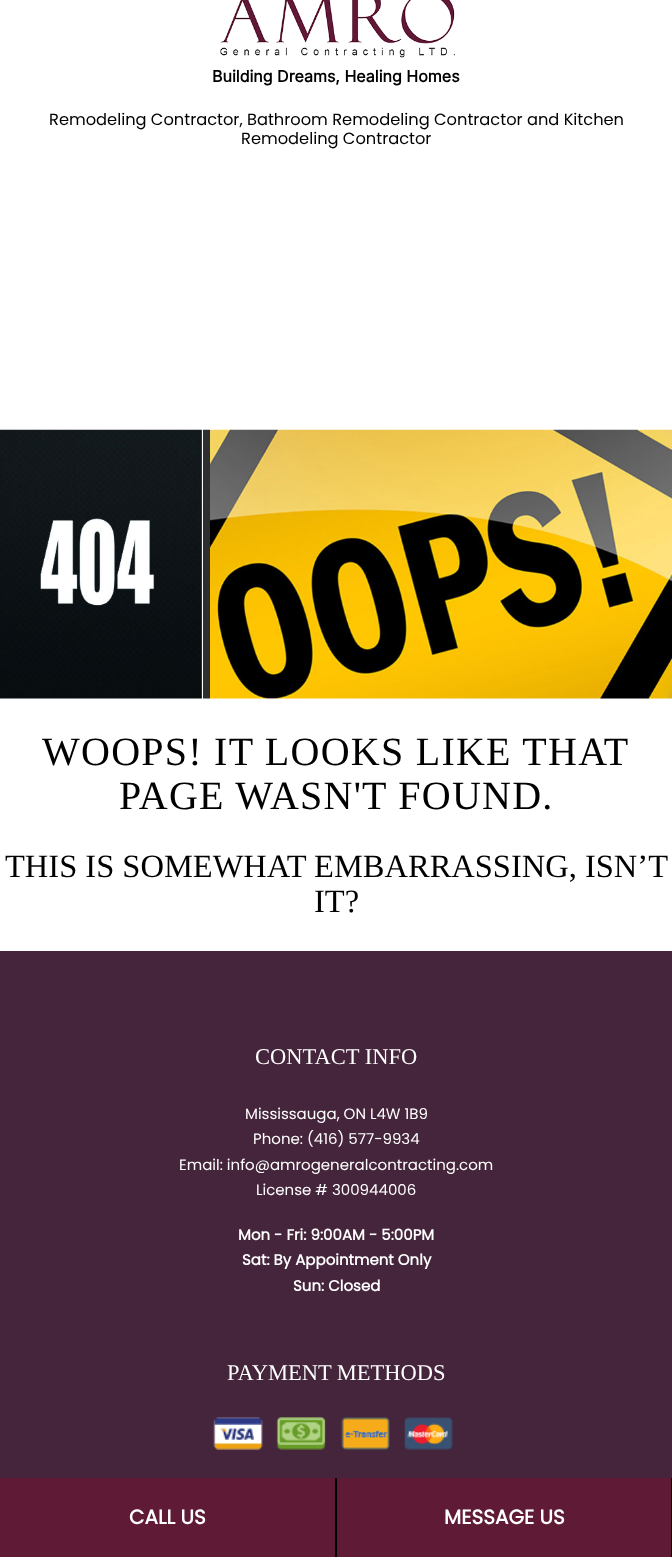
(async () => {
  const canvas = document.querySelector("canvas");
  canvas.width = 672;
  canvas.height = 1557;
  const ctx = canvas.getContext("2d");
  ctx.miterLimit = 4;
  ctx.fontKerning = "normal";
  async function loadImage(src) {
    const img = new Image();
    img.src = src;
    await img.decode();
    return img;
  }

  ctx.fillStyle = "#ffffff";
  ctx.fillRect(0, 0, 672, 1557);
  ctx.drawImage(await loadImage("img/1.png"), 220, 0, 235, 58);
  ctx.drawImage(await loadImage("img/2.png"), 0, 429, 672, 270);
  ctx.fillStyle = "#45253b";
  ctx.fillRect(0, 951, 672, 527);
  ctx.drawImage(await loadImage("img/3.png"), 213, 1417, 50, 33);
  ctx.drawImage(await loadImage("img/4.png"), 276, 1417, 50, 33);
  ctx.drawImage(await loadImage("img/5.png"), 341, 1417, 49, 33);
  ctx.drawImage(await loadImage("img/6.png"), 404, 1417, 49, 33);
  for (const [x, y, w, h, color] of [
    [0, 1478, 335, 79, "#5f1b36"],
    [335, 1478, 2, 79, "#000000"],
    [337, 1478, 334, 79, "#5f1b36"],
    [671, 1478, 1, 79, "#000000"],
  ]) {
    ctx.fillStyle = color;
    ctx.fillRect(x, y, w, h);
  }
  ctx.font = "bold 16px Inter";
  ctx.fillText("Building Dreams, Healing Homes", 212, 82);
  ctx.font = "16.25px Poppins";
  ctx.fillText("Remodeling Contractor, Bathroom Remodeling Contractor and Kitchen", 49, 125);
  ctx.fillText("Remodeling Contractor", 241, 144);
  ctx.letterSpacing = "1.25px";
  ctx.font = "40px Liberation Serif";
  ctx.fillText("WOOPS! IT LOOKS LIKE THAT", 42, 765);
  ctx.fillText("PAGE WASN'T FOUND.", 119, 809);
  ctx.letterSpacing = "0px";
  ctx.font = "32.5px Liberation Serif";
  ctx.fillText("THIS IS SOMEWHAT EMBARRASSING, ISN’T", 5, 877);
  ctx.fillText("IT?", 314, 912);
  ctx.font = "22.5px Liberation Serif";
  ctx.fillStyle = "#ffffff";
  ctx.fillText("CONTACT INFO", 255, 1064);
  ctx.font = "15px Poppins";
  for (const [text, x, y] of [
    ["Mississauga, ON L4W 1B9", 245, 1119],
    ["Phone: (416) 577-9934", 253, 1144],
    ["Email: info@amrogeneralcontracting.com", 179, 1170],
    ["License # 300944006", 256, 1195],
  ]) {
    ctx.fillText(text, x, y);
  }
  ctx.font = "bold 15px Poppins";
  for (const [text, x, y] of [
    ["Mon - Fri: 9:00AM - 5:00PM", 238, 1240],
    ["Sat: By Appointment Only", 242, 1265],
    ["Sun: Closed", 293, 1291],
  ]) {
    ctx.fillText(text, x, y);
  }
  ctx.font = "22.5px Liberation Serif";
  ctx.fillText("PAYMENT METHODS", 227, 1380);
  ctx.font = "bold 20px Poppins";
  ctx.fillText("CALL US", 129, 1524);
  ctx.fillText("MESSAGE US", 444, 1524);
})();
